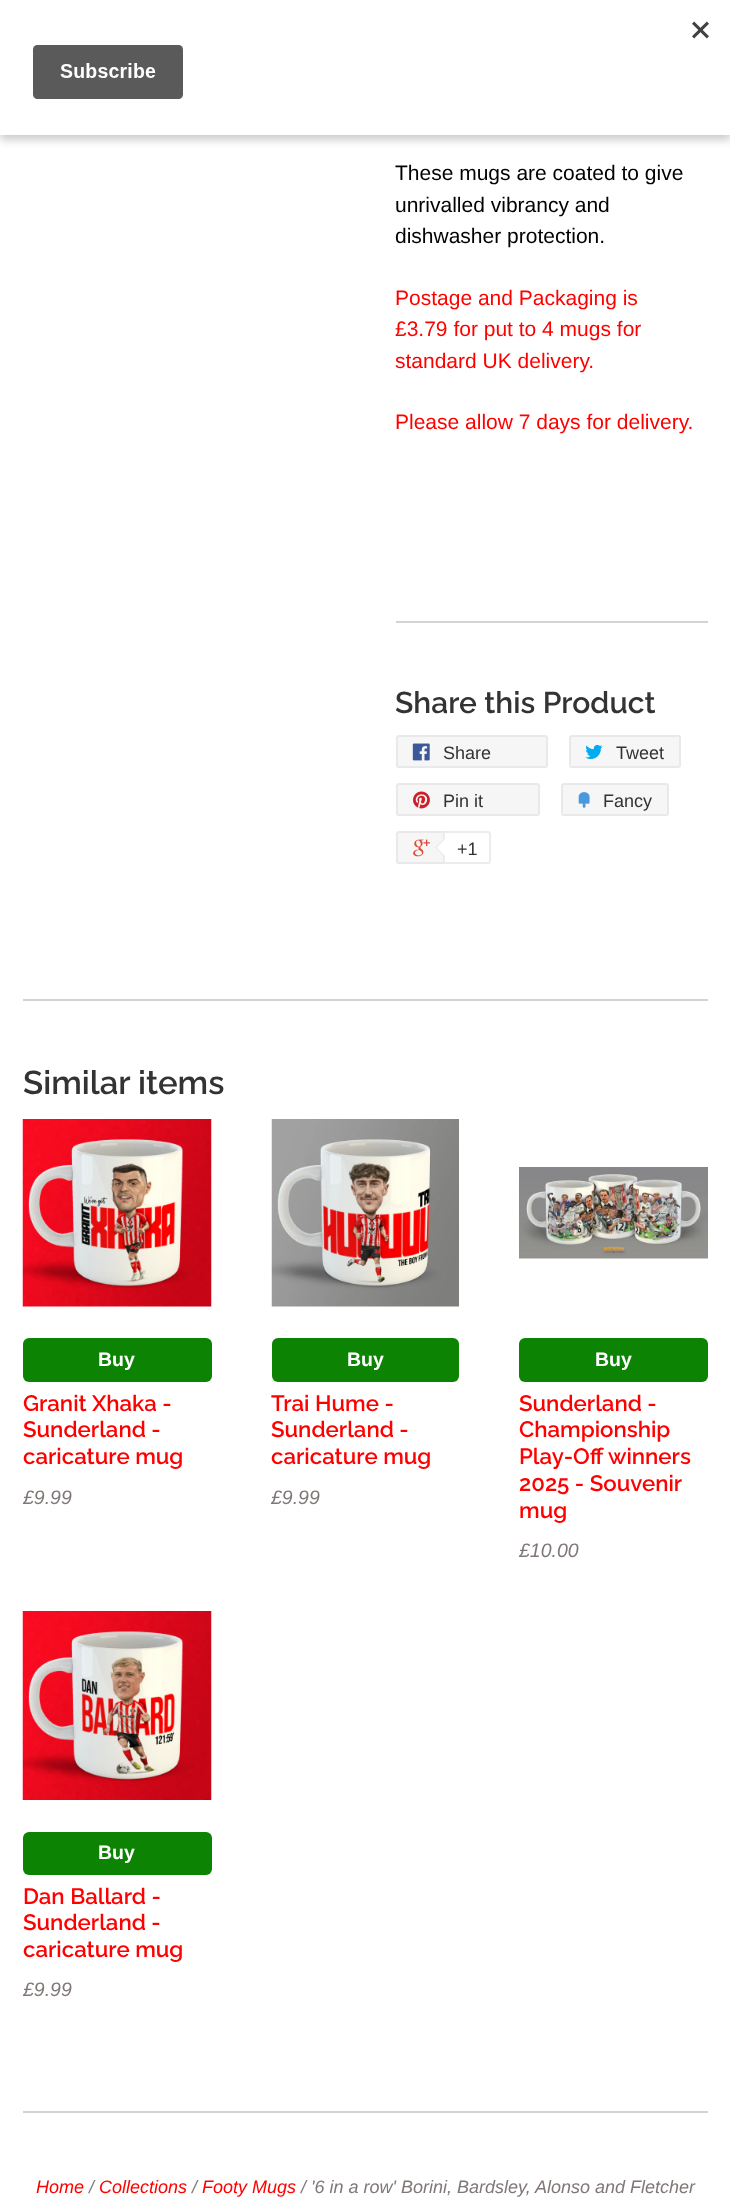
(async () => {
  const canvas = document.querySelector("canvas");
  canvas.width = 730;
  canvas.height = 2208;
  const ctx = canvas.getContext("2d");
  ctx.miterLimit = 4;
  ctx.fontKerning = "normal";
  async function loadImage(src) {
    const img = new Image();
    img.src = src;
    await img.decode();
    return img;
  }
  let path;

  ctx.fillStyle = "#ffffff";
  ctx.fillRect(0, 0, 730, 2208);
  ctx.fillStyle = "rgba(0, 0, 0, 0.2)";
  ctx.filter = "blur(4.5px)";
  ctx.beginPath();
  ctx.rect(0, 5, 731, 135);
  ctx.fill();
  ctx.filter = "none";
  ctx.fillStyle = "#ffffff";
  ctx.fillRect(0, 0, 730, 135);
  ctx.drawImage(await loadImage("img/1.png"), 32, 21, 677, 78);
  ctx.fillStyle = "#d3d3d3";
  ctx.fillRect(396, 621, 312, 2);
  ctx.fillStyle = "#f6f6f6";
  ctx.beginPath();
  ctx.roundRect(397, 736, 150, 31, 2);
  ctx.fill();
  ctx.strokeStyle = "#e9e9e9";
  ctx.lineWidth = 2;
  ctx.stroke();
  ctx.drawImage(await loadImage("img/2.png"), 412, 743, 18, 18);
  ctx.beginPath();
  ctx.roundRect(570, 736, 110, 31, 2);
  ctx.fill();
  ctx.stroke();
  ctx.drawImage(await loadImage("img/3.png"), 585, 744, 18, 15);
  ctx.beginPath();
  ctx.roundRect(397, 784, 142, 31, 2);
  ctx.fill();
  ctx.stroke();
  ctx.drawImage(await loadImage("img/4.png"), 413, 791, 17, 18);
  ctx.beginPath();
  ctx.roundRect(562, 784, 106, 31, 2);
  ctx.fill();
  ctx.stroke();
  ctx.drawImage(await loadImage("img/5.png"), 578, 792, 12, 16);
  ctx.beginPath();
  ctx.roundRect(397, 832, 91, 31, 2);
  ctx.fill();
  ctx.stroke();
  ctx.drawImage(await loadImage("img/6.png"), 413, 839, 17, 18);
  ctx.fillStyle = "#ffffff";
  ctx.beginPath();
  ctx.roundRect(444, 832, 46, 31, [0, 2, 2, 0]);
  ctx.fill();
  ctx.strokeStyle = "#ececec";
  ctx.stroke();
  ctx.fillStyle = "#e9e9e9";
  path = new Path2D("M444 838.5V856.5L435 847.5Z");
  ctx.fill(path);
  ctx.fillStyle = "#ffffff";
  path = new Path2D("M445.5 838.5V856.5L436.5 847.5Z");
  ctx.fill(path);
  ctx.fillStyle = "#d3d3d3";
  ctx.fillRect(23, 999, 685, 2);
  ctx.drawImage(await loadImage("img/7.png"), 22, 1119, 190, 188);
  ctx.fillStyle = "#0d8303";
  ctx.beginPath();
  ctx.roundRect(23, 1338, 189, 44, 6);
  ctx.fill();
  ctx.drawImage(await loadImage("img/8.png"), 271, 1119, 188, 188);
  ctx.beginPath();
  ctx.roundRect(272, 1338, 187, 44, 6);
  ctx.fill();
  ctx.drawImage(await loadImage("img/9.png"), 519, 1167, 189, 92);
  ctx.beginPath();
  ctx.roundRect(519, 1338, 189, 44, 6);
  ctx.fill();
  ctx.drawImage(await loadImage("img/10.png"), 22, 1611, 190, 189);
  ctx.beginPath();
  ctx.roundRect(23, 1832, 189, 43, 6);
  ctx.fill();
  ctx.fillStyle = "#d3d3d3";
  ctx.fillRect(23, 2111, 685, 2);
  ctx.font = "21px Liberation Sans";
  ctx.fillStyle = "#000000";
  for (const [text, x, y] of [
    ["These mugs are coated to give", 395, 180],
    ["unrivalled vibrancy and", 395, 212],
    ["dishwasher protection.", 395, 243],
  ]) {
    ctx.fillText(text, x, y);
  }
  ctx.fillStyle = "#ff0000";
  for (const [text, x, y] of [
    ["Postage and Packaging is", 395, 305],
    ["£3.79 for put to 4 mugs for", 395, 336],
    ["standard UK delivery.", 395, 368],
    ["Please allow 7 days for delivery.", 395, 429],
  ]) {
    ctx.fillText(text, x, y);
  }
  ctx.font = "100 30px Raleway";
  ctx.fillStyle = "#333333";
  ctx.fillText("Share this Product", 395, 713);
  ctx.font = "18px Liberation Sans";
  for (const [text, x, y] of [
    ["Share", 443, 759],
    ["Tweet", 616, 759],
    ["Pin it", 443, 807],
    ["Fancy", 603, 807],
    ["+1", 457, 855],
  ]) {
    ctx.fillText(text, x, y);
  }
  ctx.font = "100 33px Raleway";
  ctx.fillText("Similar items", 23, 1094);
  ctx.font = "bold 19.5px Liberation Sans";
  ctx.fillStyle = "#ffffff";
  ctx.fillText("Buy", 98, 1366);
  ctx.font = "100 22.25px Raleway";
  ctx.fillStyle = "#ff0000";
  for (const [text, x, y] of [
    ["Granit Xhaka -", 23, 1411],
    ["Sunderland -", 23, 1437],
    ["caricature mug", 23, 1464],
  ]) {
    ctx.fillText(text, x, y);
  }
  ctx.font = "italic 19.5px Liberation Sans";
  ctx.fillStyle = "#807777";
  ctx.fillText("£9.99", 23, 1504);
  ctx.font = "bold 19.5px Liberation Sans";
  ctx.fillStyle = "#ffffff";
  ctx.fillText("Buy", 347, 1366);
  ctx.font = "100 22.25px Raleway";
  ctx.fillStyle = "#ff0000";
  for (const [text, x, y] of [
    ["Trai Hume -", 271, 1411],
    ["Sunderland -", 271, 1437],
    ["caricature mug", 271, 1464],
  ]) {
    ctx.fillText(text, x, y);
  }
  ctx.font = "italic 19.5px Liberation Sans";
  ctx.fillStyle = "#807777";
  ctx.fillText("£9.99", 271, 1504);
  ctx.font = "bold 19.5px Liberation Sans";
  ctx.fillStyle = "#ffffff";
  ctx.fillText("Buy", 595, 1366);
  ctx.font = "100 22.25px Raleway";
  ctx.fillStyle = "#ff0000";
  for (const [text, x, y] of [
    ["Sunderland -", 519, 1411],
    ["Championship", 519, 1437],
    ["Play-Off winners", 519, 1464],
    ["2025 - Souvenir", 519, 1491],
    ["mug", 519, 1518],
  ]) {
    ctx.fillText(text, x, y);
  }
  ctx.font = "italic 19.5px Liberation Sans";
  ctx.fillStyle = "#807777";
  ctx.fillText("£10.00", 519, 1557);
  ctx.font = "bold 19.5px Liberation Sans";
  ctx.fillStyle = "#ffffff";
  ctx.fillText("Buy", 98, 1859);
  ctx.font = "100 22.25px Raleway";
  ctx.fillStyle = "#ff0000";
  for (const [text, x, y] of [
    ["Dan Ballard -", 23, 1904],
    ["Sunderland -", 23, 1930],
    ["caricature mug", 23, 1957],
  ]) {
    ctx.fillText(text, x, y);
  }
  ctx.font = "italic 19.5px Liberation Sans";
  ctx.fillStyle = "#807777";
  ctx.fillText("£9.99", 23, 1996);
  ctx.font = "italic 18px Liberation Sans";
  ctx.fillStyle = "#ff0000";
  ctx.fillText("Home", 36, 2193);
  ctx.fillStyle = "#807777";
  ctx.fillText("/", 89, 2193);
  ctx.fillStyle = "#ff0000";
  ctx.fillText("Collections", 99, 2193);
  ctx.fillStyle = "#807777";
  ctx.fillText("/", 192, 2193);
  ctx.fillStyle = "#ff0000";
  ctx.fillText("Footy Mugs", 202, 2193);
  ctx.fillStyle = "#807777";
  ctx.fillText("/ '6 in a row' Borini, Bardsley, Alonso and Fletcher", 301, 2193);
})();
